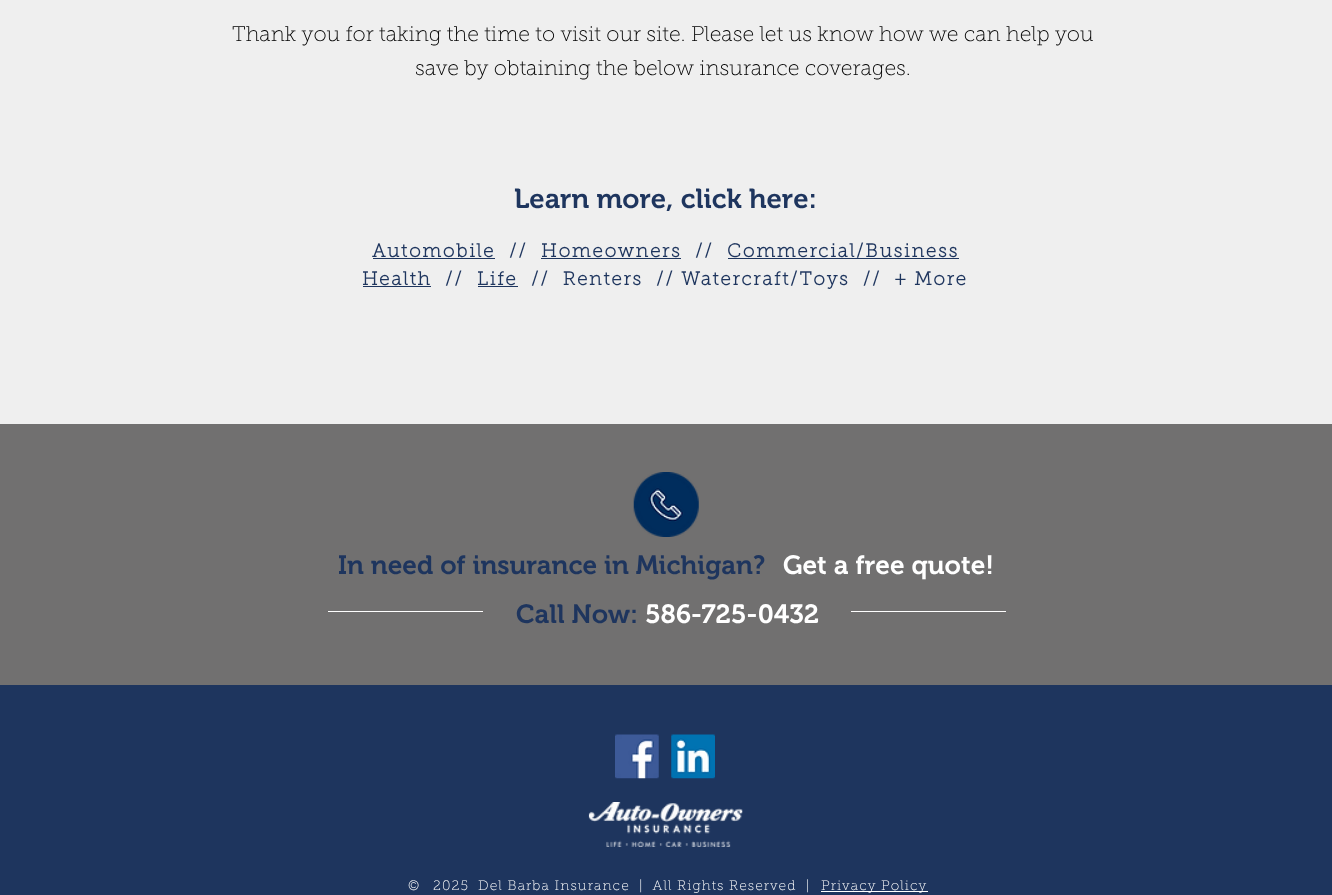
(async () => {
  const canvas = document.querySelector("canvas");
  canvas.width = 1332;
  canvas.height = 895;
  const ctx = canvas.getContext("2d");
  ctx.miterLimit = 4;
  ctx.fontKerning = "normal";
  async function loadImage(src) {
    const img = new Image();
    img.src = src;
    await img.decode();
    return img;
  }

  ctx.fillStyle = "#efefef";
  ctx.fillRect(0, 0, 1332, 895);
  for (const [x, y, w, h, color] of [
    [373, 258, 122, 1, "#1e355e"],
    [541, 258, 140, 1, "#1e355e"],
    [728, 258, 231, 1, "#1e355e"],
    [363, 286, 68, 1, "#1e355e"],
    [478, 286, 40, 1, "#1e355e"],
    [0, 424, 1332, 261, "#717070"],
  ]) {
    ctx.fillStyle = color;
    ctx.fillRect(x, y, w, h);
  }
  ctx.drawImage(await loadImage("img/1.png"), 633, 472, 66, 65);
  for (const [x, y, w, h, color] of [
    [328, 611, 155, 1, "#ffffff"],
    [851, 611, 155, 1, "#ffffff"],
    [0, 685, 1332, 210, "#1e355e"],
  ]) {
    ctx.fillStyle = color;
    ctx.fillRect(x, y, w, h);
  }
  ctx.drawImage(await loadImage("img/2.png"), 615, 734, 44, 45);
  ctx.drawImage(await loadImage("img/3.png"), 671, 734, 44, 45);
  ctx.drawImage(await loadImage("img/4.png"), 588, 802, 155, 45);
  ctx.fillStyle = "#ffffff";
  ctx.fillRect(821, 891, 107, 1);
  ctx.font = "100 21.25px 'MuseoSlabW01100'";
  ctx.fillStyle = "#000000";
  ctx.fillText("Thank you for taking the time to visit our site. Please let us know how we can help you", 232, 41);
  ctx.fillText("save by obtaining the below insurance coverages.", 415, 75);
  ctx.font = "600 27.5px 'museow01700'";
  ctx.fillStyle = "#1e355e";
  ctx.fillText("Learn more, click here:", 514, 208);
  ctx.letterSpacing = "1.9px";
  ctx.font = "bold 18.75px 'MuseoSlabW01100'";
  for (const [text, x, y] of [
    ["Automobile", 372, 257],
    ["//", 509, 257],
    ["Homeowners", 541, 257],
    ["//", 695, 257],
    ["Commercial/Business", 727, 257],
    ["Health", 362, 285],
    ["//", 445, 285],
    ["Life", 477, 285],
    ["//  Renters  // Watercraft/Toys  //  + More", 531, 285],
  ]) {
    ctx.fillText(text, x, y);
  }
  ctx.letterSpacing = "0px";
  ctx.font = "600 26.25px 'museow01700'";
  ctx.fillText("In need of insurance in Michigan?", 338, 574);
  ctx.fillStyle = "#ffffff";
  ctx.fillText("Get a free quote!", 783, 574);
  ctx.fillStyle = "#1e355e";
  ctx.fillText("Call Now:", 516, 623);
  ctx.fillStyle = "#ffffff";
  ctx.fillText("586-725-0432", 645, 623);
  ctx.letterSpacing = "1.1px";
  ctx.font = "100 13.75px 'MuseoSlabW01100'";
  for (const [text, x, y] of [
    ["©", 408, 890],
    ["2025", 433, 890],
    ["Del Barba Insurance  |  All Rights Reserved  |", 478, 890],
    ["Privacy Policy", 821, 890],
  ]) {
    ctx.fillText(text, x, y);
  }
})();
